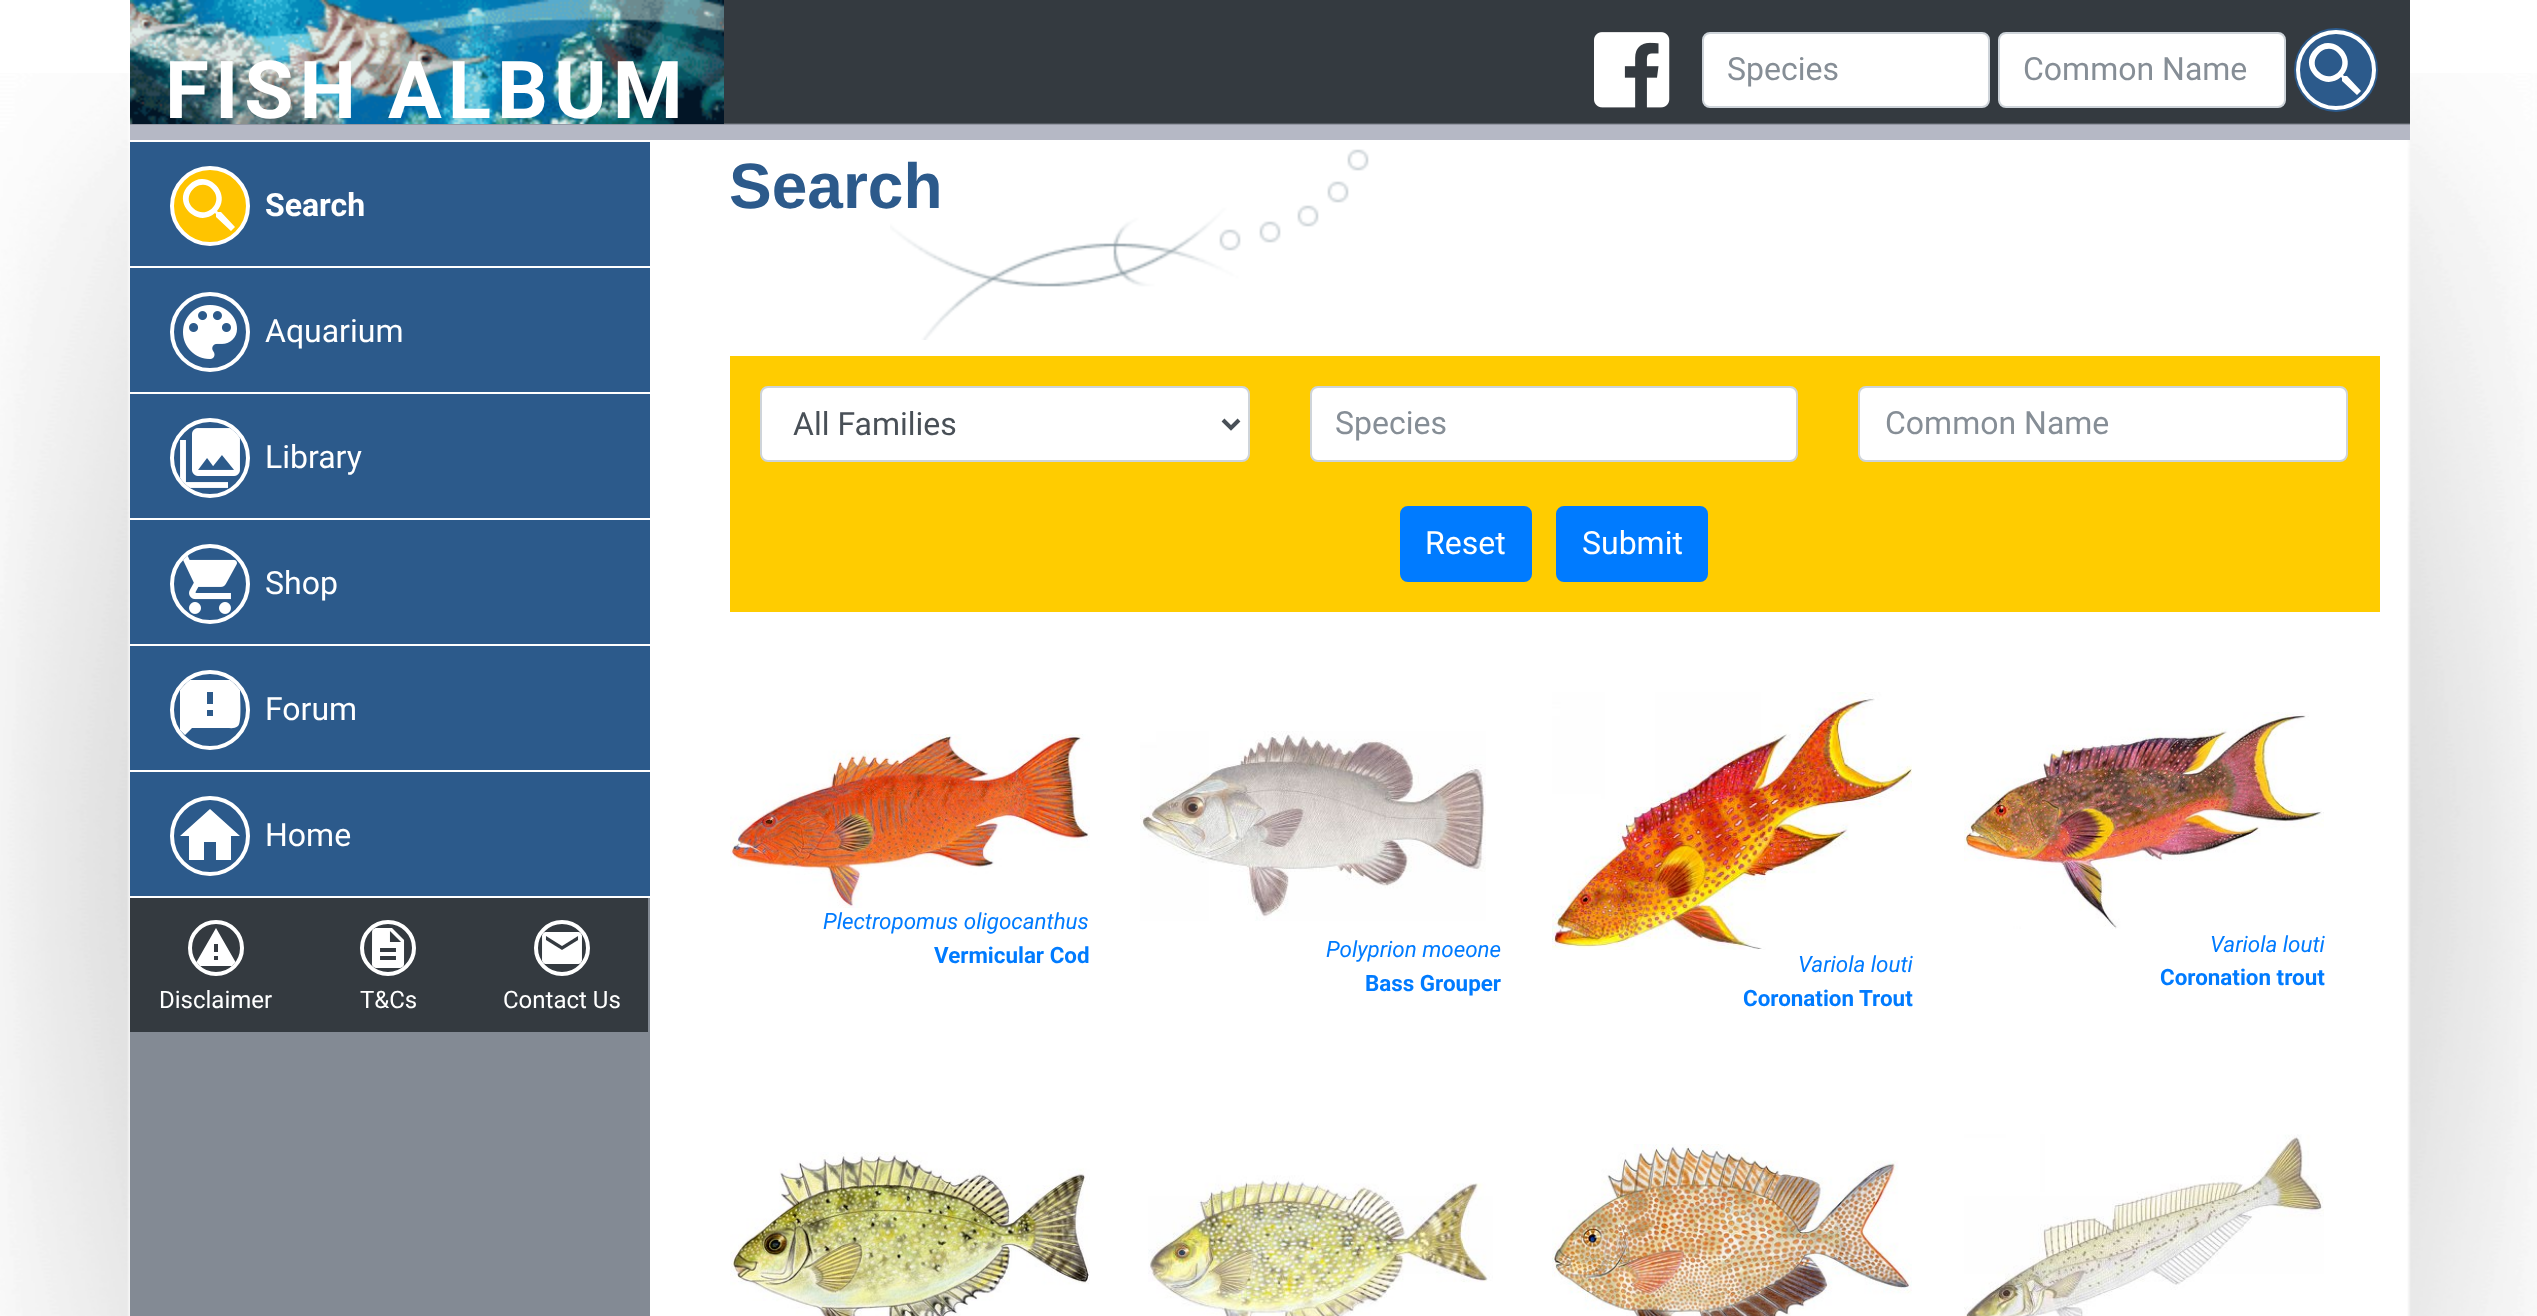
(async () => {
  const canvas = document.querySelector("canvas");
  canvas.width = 2537;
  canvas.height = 1316;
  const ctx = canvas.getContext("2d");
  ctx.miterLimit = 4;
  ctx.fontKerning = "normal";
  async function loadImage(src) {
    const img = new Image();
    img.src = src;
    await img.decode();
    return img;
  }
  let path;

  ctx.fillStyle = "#ffffff";
  ctx.fillRect(0, 0, 2537, 1316);
  ctx.drawImage(await loadImage("img/1.png"), 0, 73, 2537, 1243);
  ctx.fillStyle = "#343a40";
  ctx.fillRect(724, 0, 1686, 123);
  ctx.drawImage(await loadImage("img/2.png"), 130, 123, 2280, 17);
  ctx.drawImage(await loadImage("img/3.png"), 130, 0, 594, 124);
  ctx.drawImage(await loadImage("img/4.png"), 1594, 32, 76, 76);
  ctx.fillStyle = "#ffffff";
  ctx.beginPath();
  ctx.roundRect(1703, 33, 286, 74, 7);
  ctx.fill();
  ctx.strokeStyle = "#ced4da";
  ctx.lineWidth = 2;
  ctx.stroke();
  ctx.beginPath();
  ctx.roundRect(1999, 33, 286, 74, 7);
  ctx.fill();
  ctx.stroke();
  ctx.fillStyle = "#2c5a8b";
  ctx.beginPath();
  ctx.arc(2336, 70, 42, 0, Math.PI * 2);
  ctx.fill();
  ctx.beginPath();
  ctx.arc(2336, 70, 38, 0, Math.PI * 2);
  ctx.strokeStyle = "#ffffff";
  ctx.lineWidth = 4;
  ctx.stroke();
  ctx.fillStyle = "#ffffff";
  path = new Path2D("M2319 72C2332 85 2351 66 2338 53C2326 40 2306 60 2319 72ZM2347 76L2361 91L2357 95L2342 81V78L2341 77C2323 93 2297 66 2315 49C2332 31 2359 57 2343 75L2344 76Z");
  ctx.fill(path);
  for (const [x, y, w, h, color] of [
    [130, 898, 520, 418, "#838a94"],
    [130, 142, 520, 124, "#2c5a8b"],
    [130, 266, 1, 2, "#ffffff"],
  ]) {
    ctx.fillStyle = color;
    ctx.fillRect(x, y, w, h);
  }
  ctx.fillStyle = "#ffc400";
  ctx.beginPath();
  ctx.arc(210, 206, 38, 0, Math.PI * 2);
  ctx.fill();
  ctx.stroke();
  ctx.fillStyle = "#ffffff";
  path = new Path2D("M193 208C206 221 225 202 212 189C200 176 180 196 193 208ZM221 212L235 227L231 231L216 217V214L215 213C197 229 171 202 189 185C206 167 233 193 217 211L218 212Z");
  ctx.fill(path);
  ctx.fillStyle = "#2c5a8b";
  ctx.fillRect(130, 268, 520, 124);
  ctx.beginPath();
  ctx.arc(210, 332, 38, 0, Math.PI * 2);
  ctx.stroke();
  ctx.drawImage(await loadImage("img/5.png"), 183, 305, 54, 54);
  ctx.fillRect(130, 394, 520, 124);
  ctx.fillStyle = "#ffffff";
  ctx.fillRect(130, 392, 1, 2);
  ctx.beginPath();
  ctx.arc(210, 458, 38, 0, Math.PI * 2);
  ctx.stroke();
  ctx.drawImage(await loadImage("img/6.png"), 180, 428, 60, 60);
  ctx.fillStyle = "#2c5a8b";
  ctx.fillRect(130, 520, 520, 124);
  ctx.fillStyle = "#ffffff";
  ctx.fillRect(130, 518, 1, 2);
  ctx.beginPath();
  ctx.arc(210, 584, 38, 0, Math.PI * 2);
  ctx.stroke();
  ctx.drawImage(await loadImage("img/7.png"), 183, 556, 54, 58);
  ctx.fillStyle = "#2c5a8b";
  ctx.fillRect(130, 646, 520, 124);
  ctx.fillStyle = "#ffffff";
  ctx.fillRect(130, 644, 1, 2);
  ctx.beginPath();
  ctx.arc(210, 710, 38, 0, Math.PI * 2);
  ctx.stroke();
  path = new Path2D("M180 690C183 686 186 683 190 680H230C234 683 237 686 240 690C240 697 242 723 238 726C235 729 230 728 227 728H192L185 735L180 730ZM213 704H207V692H213ZM213 716H207V710H213Z");
  ctx.fill(path, "evenodd");
  ctx.fillStyle = "#2c5a8b";
  ctx.fillRect(130, 772, 520, 124);
  ctx.fillStyle = "#ffffff";
  ctx.fillRect(130, 770, 1, 2);
  ctx.beginPath();
  ctx.arc(210, 836, 38, 0, Math.PI * 2);
  ctx.stroke();
  path = new Path2D("M204 860H189V836H180L210 809L240 836H231V860H216V842H204Z");
  ctx.fill(path);
  ctx.fillStyle = "#343a40";
  ctx.fillRect(130, 898, 518, 134);
  ctx.fillStyle = "#ffffff";
  ctx.fillRect(130, 896, 1, 2);
  ctx.beginPath();
  ctx.arc(216, 948, 26, 0, Math.PI * 2);
  ctx.stroke();
  path = new Path2D("M196.5 962L216 928L235.5 962L232 966H200ZM218 960H214V956H218ZM218 952H214V944H218Z");
  ctx.fill(path, "evenodd");
  ctx.beginPath();
  ctx.arc(388, 948, 26, 0, Math.PI * 2);
  ctx.stroke();
  ctx.drawImage(await loadImage("img/8.png"), 371, 928, 34, 40);
  ctx.beginPath();
  ctx.arc(562, 948, 26, 0, Math.PI * 2);
  ctx.stroke();
  ctx.drawImage(await loadImage("img/9.png"), 542, 932, 40, 32);
  ctx.drawImage(await loadImage("img/10.png"), 890, 149, 479, 191);
  ctx.fillStyle = "#ffcc00";
  ctx.fillRect(730, 356, 1650, 256);
  ctx.fillStyle = "#ffffff";
  ctx.beginPath();
  ctx.roundRect(761, 387, 488, 74, 7);
  ctx.fill();
  ctx.strokeStyle = "#ced4da";
  ctx.lineWidth = 2;
  ctx.stroke();
  path = new Path2D("M1223 420L1231 428L1239 420");
  ctx.strokeStyle = "#495057";
  ctx.lineWidth = 4;
  ctx.stroke(path);
  ctx.beginPath();
  ctx.roundRect(1311, 387, 486, 74, 7);
  ctx.fill();
  ctx.strokeStyle = "#ced4da";
  ctx.lineWidth = 2;
  ctx.stroke();
  ctx.beginPath();
  ctx.roundRect(1859, 387, 488, 74, 7);
  ctx.fill();
  ctx.stroke();
  ctx.fillStyle = "#007bff";
  ctx.beginPath();
  ctx.roundRect(1401, 507, 130, 74, 7);
  ctx.fill();
  ctx.strokeStyle = "#007bff";
  ctx.stroke();
  ctx.beginPath();
  ctx.roundRect(1557, 507, 150, 74, 7);
  ctx.fill();
  ctx.stroke();
  ctx.drawImage(await loadImage("img/11.png"), 730, 734, 360, 174);
  ctx.drawImage(await loadImage("img/12.png"), 1140, 731, 346, 190);
  ctx.drawImage(await loadImage("img/13.png"), 1552, 692, 360, 258);
  ctx.drawImage(await loadImage("img/14.png"), 1964, 712, 360, 217);
  ctx.drawImage(await loadImage("img/15.png"), 730, 1152, 360, 164);
  ctx.drawImage(await loadImage("img/16.png"), 1148, 1175, 345, 141);
  ctx.drawImage(await loadImage("img/17.png"), 1552, 1144, 360, 172);
  ctx.drawImage(await loadImage("img/18.png"), 1964, 1134, 360, 182);
  ctx.letterSpacing = "6px";
  ctx.font = "bold 80px Roboto";
  ctx.fillStyle = "#ffffff";
  ctx.fillText("FISH ALBUM", 165, 118);
  ctx.letterSpacing = "0px";
  ctx.font = "32px Roboto";
  ctx.fillStyle = "#868e96";
  ctx.fillText("Species", 1727, 80);
  ctx.fillText("Common Name", 2023, 80);
  ctx.font = "bold 32px Roboto";
  ctx.fillStyle = "#ffffff";
  ctx.fillText("Search", 265, 216);
  ctx.font = "32px Roboto";
  for (const [text, x, y] of [
    ["Aquarium", 265, 342],
    ["Library", 265, 468],
    ["Shop", 265, 594],
    ["Forum", 265, 720],
    ["Home", 265, 846],
  ]) {
    ctx.fillText(text, x, y);
  }
  ctx.font = "24px Roboto";
  for (const [text, x, y] of [
    ["Disclaimer", 159, 1008],
    ["T&Cs", 360, 1008],
    ["Contact Us", 503, 1008],
  ]) {
    ctx.fillText(text, x, y);
  }
  ctx.font = "bold 64px Liberation Sans";
  ctx.fillStyle = "#2c5a8b";
  ctx.fillText("Search", 729, 208);
  ctx.font = "32px Roboto";
  ctx.fillStyle = "#495057";
  ctx.fillText("All Families", 793, 435);
  ctx.fillStyle = "#868e96";
  ctx.fillText("Species", 1335, 434);
  ctx.fillText("Common Name", 1885, 434);
  ctx.fillStyle = "#ffffff";
  ctx.fillText("Reset", 1425, 554);
  ctx.fillText("Submit", 1582, 554);
  ctx.font = "italic 22.4px Roboto";
  ctx.fillStyle = "#007bff";
  ctx.fillText("Plectropomus oligocanthus", 823, 929);
  ctx.font = "bold 22.4px Roboto";
  ctx.fillText("Vermicular Cod", 934, 963);
  ctx.font = "italic 22.4px Roboto";
  ctx.fillText("Polyprion moeone", 1326, 957);
  ctx.font = "bold 22.4px Roboto";
  ctx.fillText("Bass Grouper", 1365, 991);
  ctx.font = "italic 22.4px Roboto";
  ctx.fillText("Variola louti", 1798, 972);
  ctx.font = "bold 22.4px Roboto";
  ctx.fillText("Coronation Trout", 1743, 1006);
  ctx.font = "italic 22.4px Roboto";
  ctx.fillText("Variola louti", 2210, 952);
  ctx.font = "bold 22.4px Roboto";
  ctx.fillText("Coronation trout", 2160, 985);
})();
